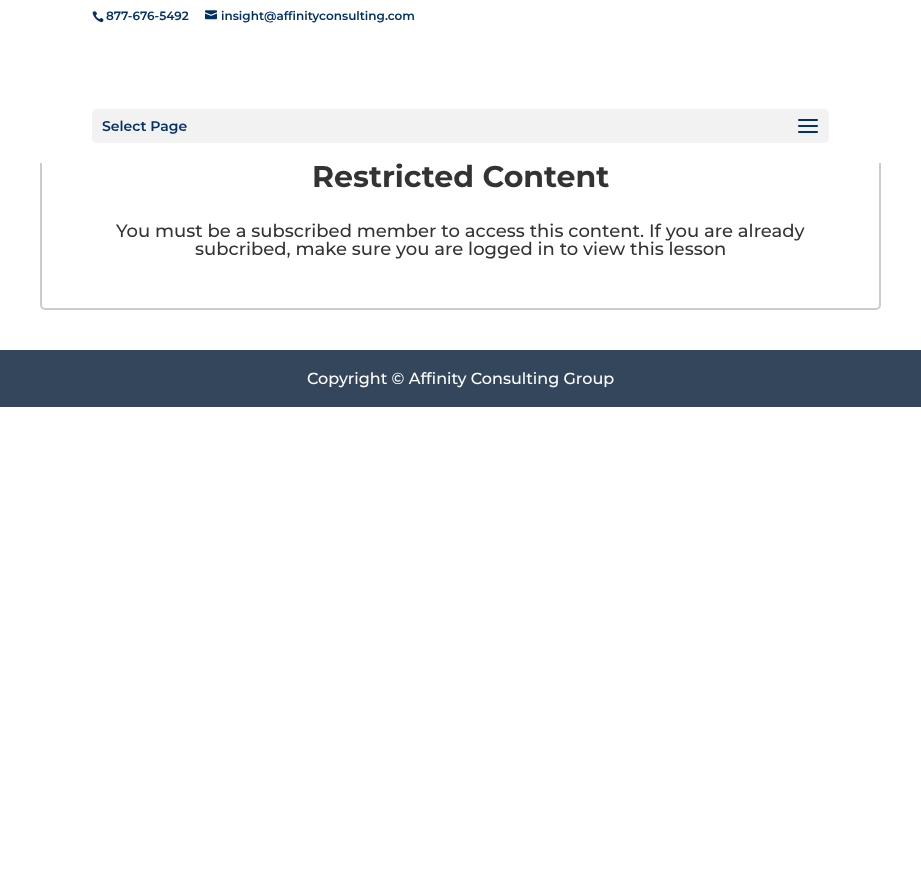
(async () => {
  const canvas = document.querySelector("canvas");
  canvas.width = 921;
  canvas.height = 875;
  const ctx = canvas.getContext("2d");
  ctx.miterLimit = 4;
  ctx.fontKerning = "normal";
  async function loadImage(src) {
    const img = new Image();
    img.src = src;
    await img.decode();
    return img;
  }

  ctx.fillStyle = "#ffffff";
  ctx.fillRect(0, 0, 921, 875);
  ctx.drawImage(await loadImage("img/1.png"), 92, 11, 12, 12);
  ctx.drawImage(await loadImage("img/2.png"), 205, 10, 12, 10);
  ctx.beginPath();
  ctx.roundRect(41, 121, 839, 188, 4);
  ctx.strokeStyle = "#cccccc";
  ctx.lineWidth = 2;
  ctx.stroke();
  ctx.fillRect(40, 120, 841, 43);
  ctx.fillStyle = "#f2f2f2";
  ctx.beginPath();
  ctx.roundRect(92, 109, 737, 34, 5);
  ctx.fill();
  ctx.drawImage(await loadImage("img/3.png"), 798, 119, 20, 14);
  ctx.fillStyle = "#34465b";
  ctx.fillRect(0, 350, 921, 57);
  ctx.font = "600 12px Montserrat";
  ctx.fillStyle = "#013168";
  ctx.fillText("877-676-5492", 106, 20);
  ctx.fillText("insight@affinityconsulting.com", 221, 20);
  ctx.font = "600 14px Montserrat";
  ctx.fillText("Select Page", 102, 131);
  ctx.font = "bold 30px Montserrat";
  ctx.fillStyle = "#333333";
  ctx.fillText("Restricted Content", 312, 187);
  ctx.font = "500 18px Montserrat";
  ctx.fillText("You must be a subscribed member to access this content. If you are already", 116, 237);
  ctx.fillText("subcribed, make sure you are logged in to view this lesson", 195, 255);
  ctx.font = "500 16px Montserrat";
  ctx.fillStyle = "#ffffff";
  ctx.fillText("Copyright © Affinity Consulting Group", 307, 384);
})();
